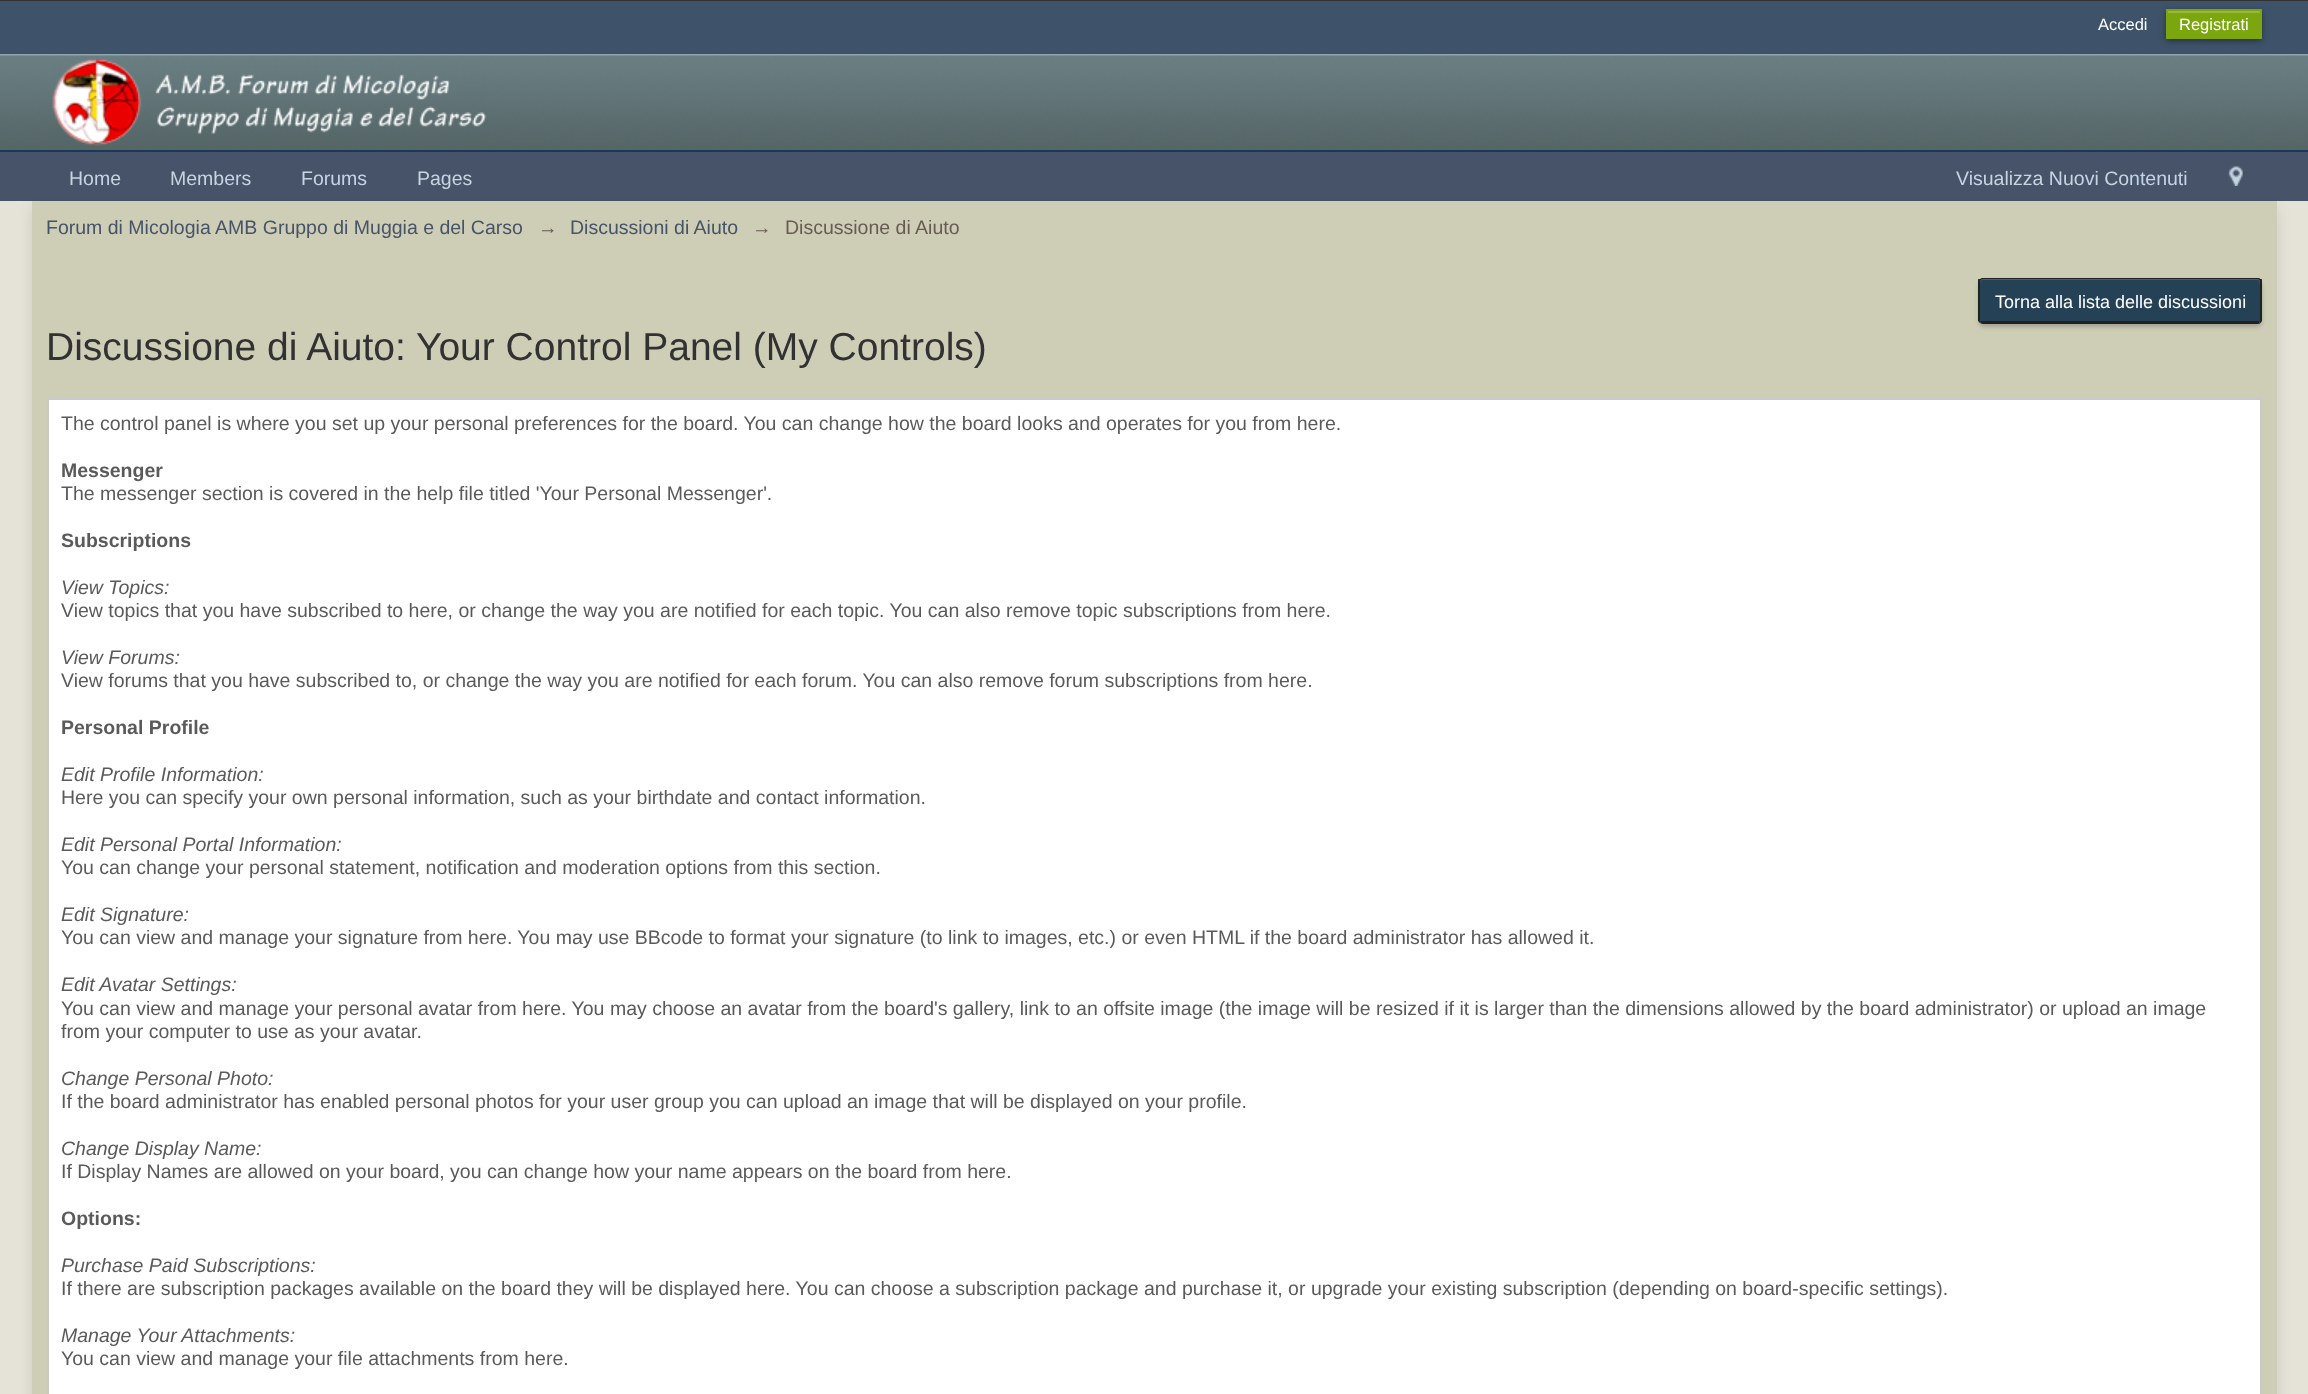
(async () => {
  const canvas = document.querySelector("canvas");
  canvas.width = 2308;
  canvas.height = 1394;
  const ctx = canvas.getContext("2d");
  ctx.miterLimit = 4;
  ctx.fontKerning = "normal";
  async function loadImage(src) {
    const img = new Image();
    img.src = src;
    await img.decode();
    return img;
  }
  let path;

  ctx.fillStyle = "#e5e3d8";
  ctx.fillRect(0, 0, 2308, 1394);
  ctx.fillStyle = "#323232";
  ctx.fillRect(0, 0, 2308, 1);
  ctx.fillStyle = "#3e536a";
  ctx.fillRect(0, 1, 2308, 53);
  ctx.fillStyle = "rgba(0, 0, 0, 0.4)";
  ctx.filter = "blur(3px)";
  ctx.beginPath();
  ctx.rect(2166, 11, 96, 30);
  ctx.fill();
  ctx.filter = "none";
  ctx.fillStyle = "#7ba60d";
  ctx.fillRect(2168, 13, 92, 24);
  ctx.fillStyle = "#95b83d";
  ctx.fillRect(2168, 11, 93, 2);
  ctx.strokeStyle = "#7ba60d";
  ctx.lineWidth = 2;
  ctx.strokeRect(2167, 10, 94, 28);
  ctx.drawImage(await loadImage("img/1.png"), 0, 54, 2308, 96);
  ctx.fillStyle = "#1b3759";
  ctx.fillRect(0, 150, 2308, 2);
  ctx.drawImage(await loadImage("img/2.png"), 52, 58, 435, 88);
  ctx.fillStyle = "#465368";
  ctx.fillRect(0, 152, 2308, 49);
  ctx.drawImage(await loadImage("img/3.png"), 2228, 166, 15, 20);
  ctx.fillStyle = "rgba(0, 0, 0, 0.1)";
  ctx.filter = "blur(7px)";
  ctx.beginPath();
  ctx.rect(32, 209, 2245, 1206);
  ctx.fill();
  ctx.filter = "none";
  ctx.fillStyle = "#cecdb6";
  ctx.fillRect(32, 201, 2245, 1193);
  ctx.fillStyle = "rgba(0, 0, 0, 0.2)";
  ctx.filter = "blur(2px)";
  ctx.beginPath();
  ctx.roundRect(1979, 281, 283, 46, 5);
  ctx.fill();
  ctx.filter = "none";
  ctx.fillStyle = "#212121";
  path = new Path2D("M1983 279H2258C2259 279 2260 280 2260 282V320C2260 322 2259 324 2258 324H1983C1981 324 1980 322 1980 320V282C1980 280 1981 279 1983 279Z");
  ctx.fill(path);
  ctx.fillStyle = "#244156";
  ctx.fillRect(1978, 279, 284, 42);
  ctx.fillStyle = "#5c5c5c";
  path = new Path2D("M1983 280H2258C2261 280 2260 295 2260 296V322V320V282C2260 280 2259 279 2258 279H1983C1981 279 1980 280 1980 282V284C1980 282 1981 280 1983 280Z");
  ctx.fill(path);
  ctx.fillStyle = "#212121";
  path = new Path2D("M1983 278H2258C2260 278 2262 280 2262 282V320C2262 322 2260 324 2258 324H1983C1981 324 1978 322 1978 320V282C1978 280 1981 278 1983 278ZM1983 279H2258C2259 279 2260 280 2260 282V320C2260 322 2259 324 2258 324H1983C1981 324 1980 322 1980 320V282C1980 280 1981 279 1983 279Z");
  ctx.fill(path, "evenodd");
  ctx.fillStyle = "#ffffff";
  ctx.beginPath();
  ctx.rect(48, 399, 2213, 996);
  ctx.fill();
  ctx.strokeStyle = "#c9c9c9";
  ctx.stroke();
  ctx.font = "16.5px Liberation Sans";
  ctx.fillText("Accedi", 2098, 30);
  ctx.fillText("Registrati", 2179, 30);
  ctx.font = "19.5px Liberation Sans";
  ctx.fillStyle = "#c5d5e2";
  for (const [text, x, y] of [
    ["Home", 69, 185],
    ["Members", 170, 185],
    ["Forums", 301, 185],
    ["Pages", 417, 185],
    ["Visualizza Nuovi Contenuti", 1956, 185],
  ]) {
    ctx.fillText(text, x, y);
  }
  ctx.fillStyle = "#465368";
  ctx.fillText("Forum di Micologia AMB Gruppo di Muggia e del Carso", 46, 234);
  ctx.fillStyle = "#685b53";
  ctx.fillText("→", 538, 234);
  ctx.fillStyle = "#465368";
  ctx.fillText("Discussioni di Aiuto", 570, 234);
  ctx.fillStyle = "#685b53";
  ctx.fillText("→", 752, 234);
  ctx.fillText("Discussione di Aiuto", 785, 234);
  ctx.font = "18px Liberation Sans";
  ctx.fillStyle = "#ffffff";
  ctx.fillText("Torna alla lista delle discussioni", 1995, 308);
  ctx.font = "39px Liberation Sans";
  ctx.fillStyle = "#323232";
  ctx.fillText("Discussione di Aiuto: Your Control Panel (My Controls)", 46, 360);
  ctx.font = "19.5px Liberation Sans";
  ctx.fillStyle = "#5a5a5a";
  ctx.fillText("The control panel is where you set up your personal preferences for the board. You can change how the board looks and operates for you from here.", 61, 430);
  ctx.font = "bold 19.5px Liberation Sans";
  ctx.fillText("Messenger", 61, 477);
  ctx.font = "19.5px Liberation Sans";
  ctx.fillText("The messenger section is covered in the help file titled 'Your Personal Messenger'.", 61, 500);
  ctx.font = "bold 19.5px Liberation Sans";
  ctx.fillText("Subscriptions", 61, 547);
  ctx.font = "italic 19.5px Liberation Sans";
  ctx.fillText("View Topics:", 61, 594);
  ctx.font = "19.5px Liberation Sans";
  ctx.fillText("View topics that you have subscribed to here, or change the way you are notified for each topic. You can also remove topic subscriptions from here.", 61, 617);
  ctx.font = "italic 19.5px Liberation Sans";
  ctx.fillText("View Forums:", 61, 664);
  ctx.font = "19.5px Liberation Sans";
  ctx.fillText("View forums that you have subscribed to, or change the way you are notified for each forum. You can also remove forum subscriptions from here.", 61, 687);
  ctx.font = "bold 19.5px Liberation Sans";
  ctx.fillText("Personal Profile", 61, 734);
  ctx.font = "italic 19.5px Liberation Sans";
  ctx.fillText("Edit Profile Information:", 61, 781);
  ctx.font = "19.5px Liberation Sans";
  ctx.fillText("Here you can specify your own personal information, such as your birthdate and contact information.", 61, 804);
  ctx.font = "italic 19.5px Liberation Sans";
  ctx.fillText("Edit Personal Portal Information:", 61, 851);
  ctx.font = "19.5px Liberation Sans";
  ctx.fillText("You can change your personal statement, notification and moderation options from this section.", 61, 874);
  ctx.font = "italic 19.5px Liberation Sans";
  ctx.fillText("Edit Signature:", 61, 921);
  ctx.font = "19.5px Liberation Sans";
  ctx.fillText("You can view and manage your signature from here. You may use BBcode to format your signature (to link to images, etc.) or even HTML if the board administrator has allowed it.", 61, 944);
  ctx.font = "italic 19.5px Liberation Sans";
  ctx.fillText("Edit Avatar Settings:", 61, 991);
  ctx.font = "19.5px Liberation Sans";
  ctx.fillText("You can view and manage your personal avatar from here. You may choose an avatar from the board's gallery, link to an offsite image (the image will be resized if it is larger than the dimensions allowed by the board administrator) or upload an image", 61, 1015);
  ctx.fillText("from your computer to use as your avatar.", 61, 1038);
  ctx.font = "italic 19.5px Liberation Sans";
  ctx.fillText("Change Personal Photo:", 61, 1085);
  ctx.font = "19.5px Liberation Sans";
  ctx.fillText("If the board administrator has enabled personal photos for your user group you can upload an image that will be displayed on your profile.", 61, 1108);
  ctx.font = "italic 19.5px Liberation Sans";
  ctx.fillText("Change Display Name:", 61, 1155);
  ctx.font = "19.5px Liberation Sans";
  ctx.fillText("If Display Names are allowed on your board, you can change how your name appears on the board from here.", 61, 1178);
  ctx.font = "bold 19.5px Liberation Sans";
  ctx.fillText("Options:", 61, 1225);
  ctx.font = "italic 19.5px Liberation Sans";
  ctx.fillText("Purchase Paid Subscriptions:", 61, 1272);
  ctx.font = "19.5px Liberation Sans";
  ctx.fillText("If there are subscription packages available on the board they will be displayed here. You can choose a subscription package and purchase it, or upgrade your existing subscription (depending on board-specific settings).", 61, 1295);
  ctx.font = "italic 19.5px Liberation Sans";
  ctx.fillText("Manage Your Attachments:", 61, 1342);
  ctx.font = "19.5px Liberation Sans";
  ctx.fillText("You can view and manage your file attachments from here.", 61, 1365);
})();
